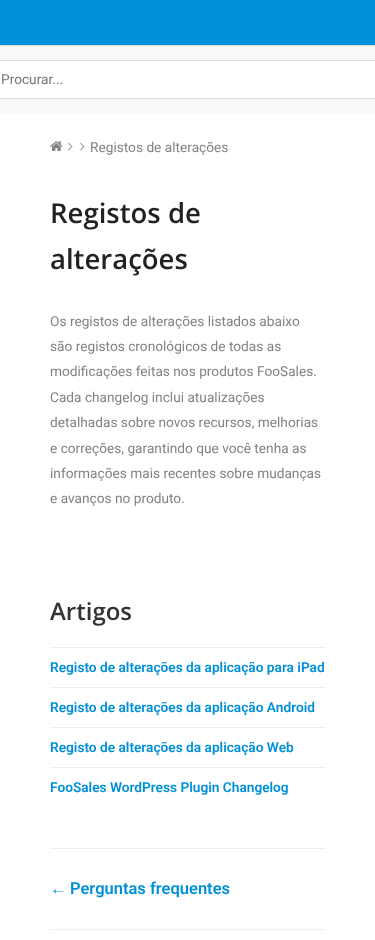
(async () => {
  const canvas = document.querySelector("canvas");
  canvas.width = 375;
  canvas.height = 940;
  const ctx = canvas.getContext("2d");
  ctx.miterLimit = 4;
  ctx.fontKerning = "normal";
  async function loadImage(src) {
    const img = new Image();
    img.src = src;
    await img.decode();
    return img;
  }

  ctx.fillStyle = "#ffffff";
  ctx.fillRect(0, 0, 375, 940);
  for (const [x, y, w, h, color] of [
    [0, 0, 375, 45, "#0090da"],
    [0, 46, 375, 68, "#f9f9f9"],
    [0, 45, 375, 1, "#dddddd"],
  ]) {
    ctx.fillStyle = color;
    ctx.fillRect(x, y, w, h);
  }
  ctx.fillStyle = "#ffffff";
  ctx.beginPath();
  ctx.rect(-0.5, 60.5, 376, 38);
  ctx.fill();
  ctx.strokeStyle = "#dddddd";
  ctx.stroke();
  ctx.drawImage(await loadImage("img/1.png"), 50, 141, 13, 10);
  ctx.drawImage(await loadImage("img/2.png"), 68, 142, 5, 9);
  ctx.drawImage(await loadImage("img/2.png"), 80, 142, 5, 9);
  for (const [x, y, w, h, color] of [
    [50, 647, 275, 1, "#eeeeee"],
    [50, 687, 275, 1, "#eeeeee"],
    [50, 727, 275, 1, "#eeeeee"],
    [50, 767, 275, 1, "#eeeeee"],
    [50, 848, 275, 1, "#eeeeee"],
    [50, 929, 275, 1, "#eeeeee"],
  ]) {
    ctx.fillStyle = color;
    ctx.fillRect(x, y, w, h);
  }
  ctx.font = "13.7px Roboto";
  ctx.fillStyle = "#757575";
  ctx.fillText("Procurar...", 1, 84);
  ctx.fillStyle = "#808285";
  ctx.fillText("Registos de alterações", 90, 152);
  ctx.font = "600 27.5px Open Sans";
  ctx.fillStyle = "#222222";
  ctx.fillText("Registos de", 50, 223);
  ctx.fillText("alterações", 50, 269);
  ctx.font = "13.7px Roboto";
  ctx.fillStyle = "#808285";
  for (const [text, x, y] of [
    ["Os registos de alterações listados abaixo", 50, 326],
    ["são registos cronológicos de todas as", 50, 351],
    ["modificações feitas nos produtos FooSales.", 50, 376],
    ["Cada changelog inclui atualizações", 50, 402],
    ["detalhadas sobre novos recursos, melhorias", 50, 427],
    ["e correções, garantindo que você tenha as", 50, 453],
    ["informações mais recentes sobre mudanças", 50, 478],
    ["e avanços no produto.", 50, 503],
  ]) {
    ctx.fillText(text, x, y);
  }
  ctx.font = "600 24px Open Sans";
  ctx.fillStyle = "#333333";
  ctx.fillText("Artigos", 50, 620);
  ctx.font = "600 13.7px Roboto";
  ctx.fillStyle = "#0090da";
  for (const [text, x, y] of [
    ["Registo de alterações da aplicação para iPad", 50, 672],
    ["Registo de alterações da aplicação Android", 50, 712],
    ["Registo de alterações da aplicação Web", 50, 752],
    ["FooSales WordPress Plugin Changelog", 50, 792],
  ]) {
    ctx.fillText(text, x, y);
  }
  ctx.font = "bold 16.5px Liberation Sans";
  ctx.fillText("←", 50, 894);
  ctx.font = "600 16.5px Roboto";
  ctx.fillText("Perguntas frequentes", 70, 894);
})();
